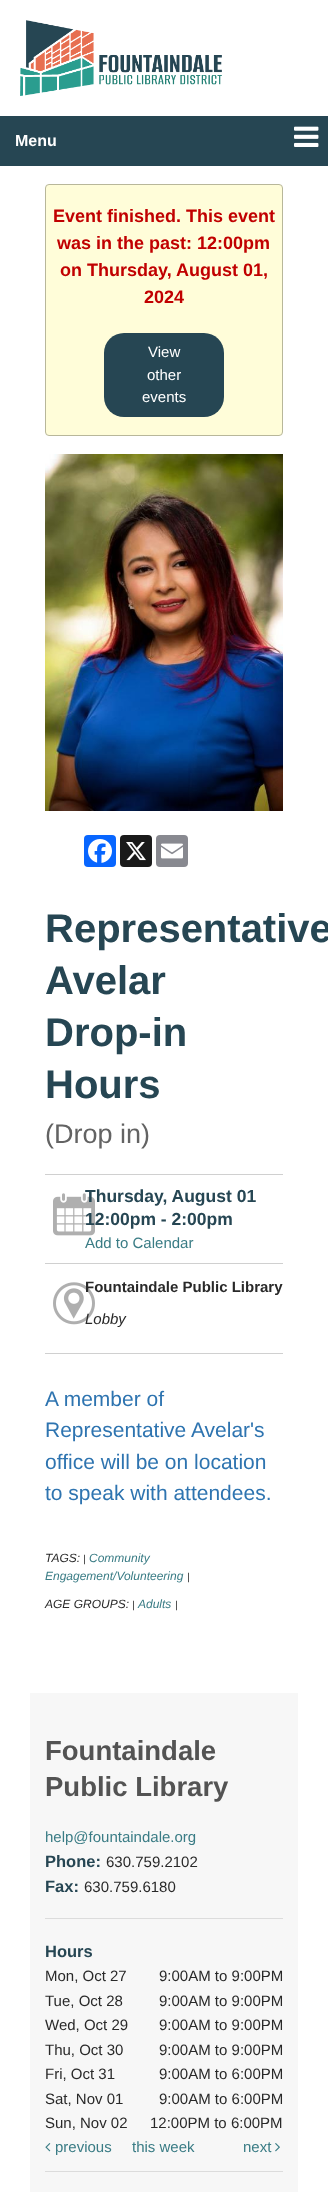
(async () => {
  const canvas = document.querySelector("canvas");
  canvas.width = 328;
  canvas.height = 2192;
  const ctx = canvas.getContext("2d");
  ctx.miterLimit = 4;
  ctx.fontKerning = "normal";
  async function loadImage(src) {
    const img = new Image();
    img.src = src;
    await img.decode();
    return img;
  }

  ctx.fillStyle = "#ffffff";
  ctx.fillRect(0, 0, 328, 2192);
  ctx.drawImage(await loadImage("img/1.png"), 20, 20, 202, 76);
  ctx.fillStyle = "#264653";
  ctx.fillRect(0, 116, 328, 50);
  ctx.drawImage(await loadImage("img/2.png"), 294, 126, 25, 21);
  ctx.fillStyle = "#fffdd9";
  ctx.beginPath();
  ctx.roundRect(45.5, 184.5, 237, 251, 3.5);
  ctx.fill();
  ctx.strokeStyle = "#b8b79a";
  ctx.stroke();
  ctx.fillStyle = "#264653";
  ctx.beginPath();
  ctx.roundRect(104, 333, 120, 84, 20);
  ctx.fill();
  ctx.drawImage(await loadImage("img/3.png"), 45, 454, 238, 357);
  ctx.fillStyle = "#0866ff";
  ctx.beginPath();
  ctx.roundRect(84, 835, 32, 32, 4);
  ctx.fill();
  ctx.drawImage(await loadImage("img/4.png"), 88, 839, 24, 24);
  ctx.fillStyle = "#1a1a1a";
  ctx.beginPath();
  ctx.roundRect(120, 835, 32, 32, 4);
  ctx.fill();
  ctx.drawImage(await loadImage("img/5.png"), 126, 842, 20, 19);
  ctx.fillStyle = "#888990";
  ctx.beginPath();
  ctx.roundRect(156, 835, 32, 32, 4);
  ctx.fill();
  ctx.drawImage(await loadImage("img/6.png"), 161, 843, 22, 16);
  ctx.fillStyle = "#d0d0d0";
  ctx.fillRect(45, 1174, 238, 1);
  ctx.drawImage(await loadImage("img/7.png"), 53, 1193, 42, 43);
  ctx.fillRect(45, 1263, 238, 1);
  ctx.drawImage(await loadImage("img/8.png"), 53, 1282, 42, 43);
  for (const [x, y, w, h, color] of [
    [45, 1353, 238, 1, "#d0d0d0"],
    [30, 1693, 268, 499, "#f7f7f7"],
    [45, 1918, 238, 1, "#dcdcdc"],
  ]) {
    ctx.fillStyle = color;
    ctx.fillRect(x, y, w, h);
  }
  ctx.drawImage(await loadImage("img/9.png"), 45, 2143, 6, 9);
  ctx.drawImage(await loadImage("img/10.png"), 275, 2143, 5, 9);
  ctx.fillRect(45, 2171, 238, 1);
  ctx.font = "bold 16px Liberation Sans";
  ctx.fillStyle = "#ffffff";
  ctx.fillText("Menu", 15, 146);
  ctx.font = "bold 18px Liberation Sans";
  ctx.fillStyle = "#c10000";
  for (const [text, x, y] of [
    ["Event finished. This event", 53, 222],
    ["was in the past: 12:00pm", 57, 249],
    ["on Thursday, August 01,", 60, 276],
    ["2024", 144, 303],
  ]) {
    ctx.fillText(text, x, y);
  }
  ctx.font = "15px Liberation Sans";
  ctx.fillStyle = "#ffffff";
  for (const [text, x, y] of [
    ["View", 148, 357],
    ["other", 147, 380],
    ["events", 142, 402],
  ]) {
    ctx.fillText(text, x, y);
  }
  ctx.font = "bold 40px Liberation Sans";
  ctx.fillStyle = "#264653";
  for (const [text, x, y] of [
    ["Representative", 45, 942],
    ["Avelar", 45, 994],
    ["Drop-in", 45, 1046],
    ["Hours", 45, 1098],
  ]) {
    ctx.fillText(text, x, y);
  }
  ctx.font = "27px Liberation Sans";
  ctx.fillStyle = "#636363";
  ctx.fillText("(Drop in)", 45, 1143);
  ctx.font = "bold 17.5px Liberation Sans";
  ctx.fillStyle = "#264653";
  ctx.fillText("Thursday, August 01", 85, 1202);
  ctx.fillText("12:00pm - 2:00pm", 85, 1225);
  ctx.font = "15px Liberation Sans";
  ctx.fillStyle = "#3a7c85";
  ctx.fillText("Add to Calendar", 85, 1248);
  ctx.font = "bold 15px Liberation Sans";
  ctx.fillStyle = "#292929";
  ctx.fillText("Fountaindale Public Library", 85, 1292);
  ctx.font = "italic 15px Liberation Sans";
  ctx.fillText("Lobby", 85, 1324);
  ctx.font = "21px Liberation Sans";
  ctx.fillStyle = "#2e74b0";
  for (const [text, x, y] of [
    ["A member of", 45, 1406],
    ["Representative Avelar's", 45, 1437],
    ["office will be on location", 45, 1469],
    ["to speak with attendees.", 45, 1500],
  ]) {
    ctx.fillText(text, x, y);
  }
  ctx.font = "italic 12px Liberation Sans";
  ctx.fillStyle = "#292929";
  ctx.fillText("TAGS:", 45, 1562);
  ctx.font = "italic 10px Liberation Sans";
  ctx.fillText("|", 83, 1562);
  ctx.font = "italic 12px Liberation Sans";
  ctx.fillStyle = "#3a7c85";
  ctx.fillText("Community", 89, 1562);
  ctx.fillText("Engagement/Volunteering", 45, 1580);
  ctx.font = "italic 10px Liberation Sans";
  ctx.fillStyle = "#292929";
  ctx.fillText("|", 187, 1580);
  ctx.font = "italic 12px Liberation Sans";
  ctx.fillText("AGE GROUPS:", 45, 1608);
  ctx.font = "italic 10px Liberation Sans";
  ctx.fillText("|", 132, 1608);
  ctx.font = "italic 12px Liberation Sans";
  ctx.fillStyle = "#3a7c85";
  ctx.fillText("Adults", 138, 1608);
  ctx.font = "italic 10px Liberation Sans";
  ctx.fillStyle = "#292929";
  ctx.fillText("|", 175, 1608);
  ctx.font = "bold 27.5px Liberation Sans";
  ctx.fillStyle = "#535353";
  ctx.fillText("Fountaindale", 45, 1760);
  ctx.fillText("Public Library", 45, 1796);
  ctx.font = "15px Liberation Sans";
  ctx.fillStyle = "#3a7c85";
  ctx.fillText("help@fountaindale.org", 45, 1842);
  ctx.font = "bold 16.5px Liberation Sans";
  ctx.fillStyle = "#264653";
  ctx.fillText("Phone:", 45, 1867);
  ctx.font = "15px Liberation Sans";
  ctx.fillStyle = "#292929";
  ctx.fillText("630.759.2102", 106, 1867);
  ctx.font = "bold 16.5px Liberation Sans";
  ctx.fillStyle = "#264653";
  ctx.fillText("Fax:", 45, 1892);
  ctx.font = "15px Liberation Sans";
  ctx.fillStyle = "#292929";
  ctx.fillText("630.759.6180", 84, 1892);
  ctx.font = "bold 16.5px Liberation Sans";
  ctx.fillStyle = "#264653";
  ctx.fillText("Hours", 45, 1957);
  ctx.font = "15px Liberation Sans";
  ctx.fillStyle = "#292929";
  for (const [text, x, y] of [
    ["Mon, Oct 27", 45, 1981],
    ["9:00AM to 9:00PM", 159, 1981],
    ["Tue, Oct 28", 45, 2006],
    ["9:00AM to 9:00PM", 159, 2006],
    ["Wed, Oct 29", 45, 2030],
    ["9:00AM to 9:00PM", 159, 2030],
    ["Thu, Oct 30", 45, 2055],
    ["9:00AM to 9:00PM", 159, 2055],
    ["Fri, Oct 31", 45, 2079],
    ["9:00AM to 6:00PM", 159, 2079],
    ["Sat, Nov 01", 45, 2104],
    ["9:00AM to 6:00PM", 159, 2104],
    ["Sun, Nov 02", 45, 2128],
    ["12:00PM to 6:00PM", 150, 2128],
  ]) {
    ctx.fillText(text, x, y);
  }
  ctx.fillStyle = "#3a7c85";
  for (const [text, x, y] of [
    ["previous", 55, 2152],
    ["this week", 132, 2152],
    ["next", 243, 2152],
  ]) {
    ctx.fillText(text, x, y);
  }
})();
